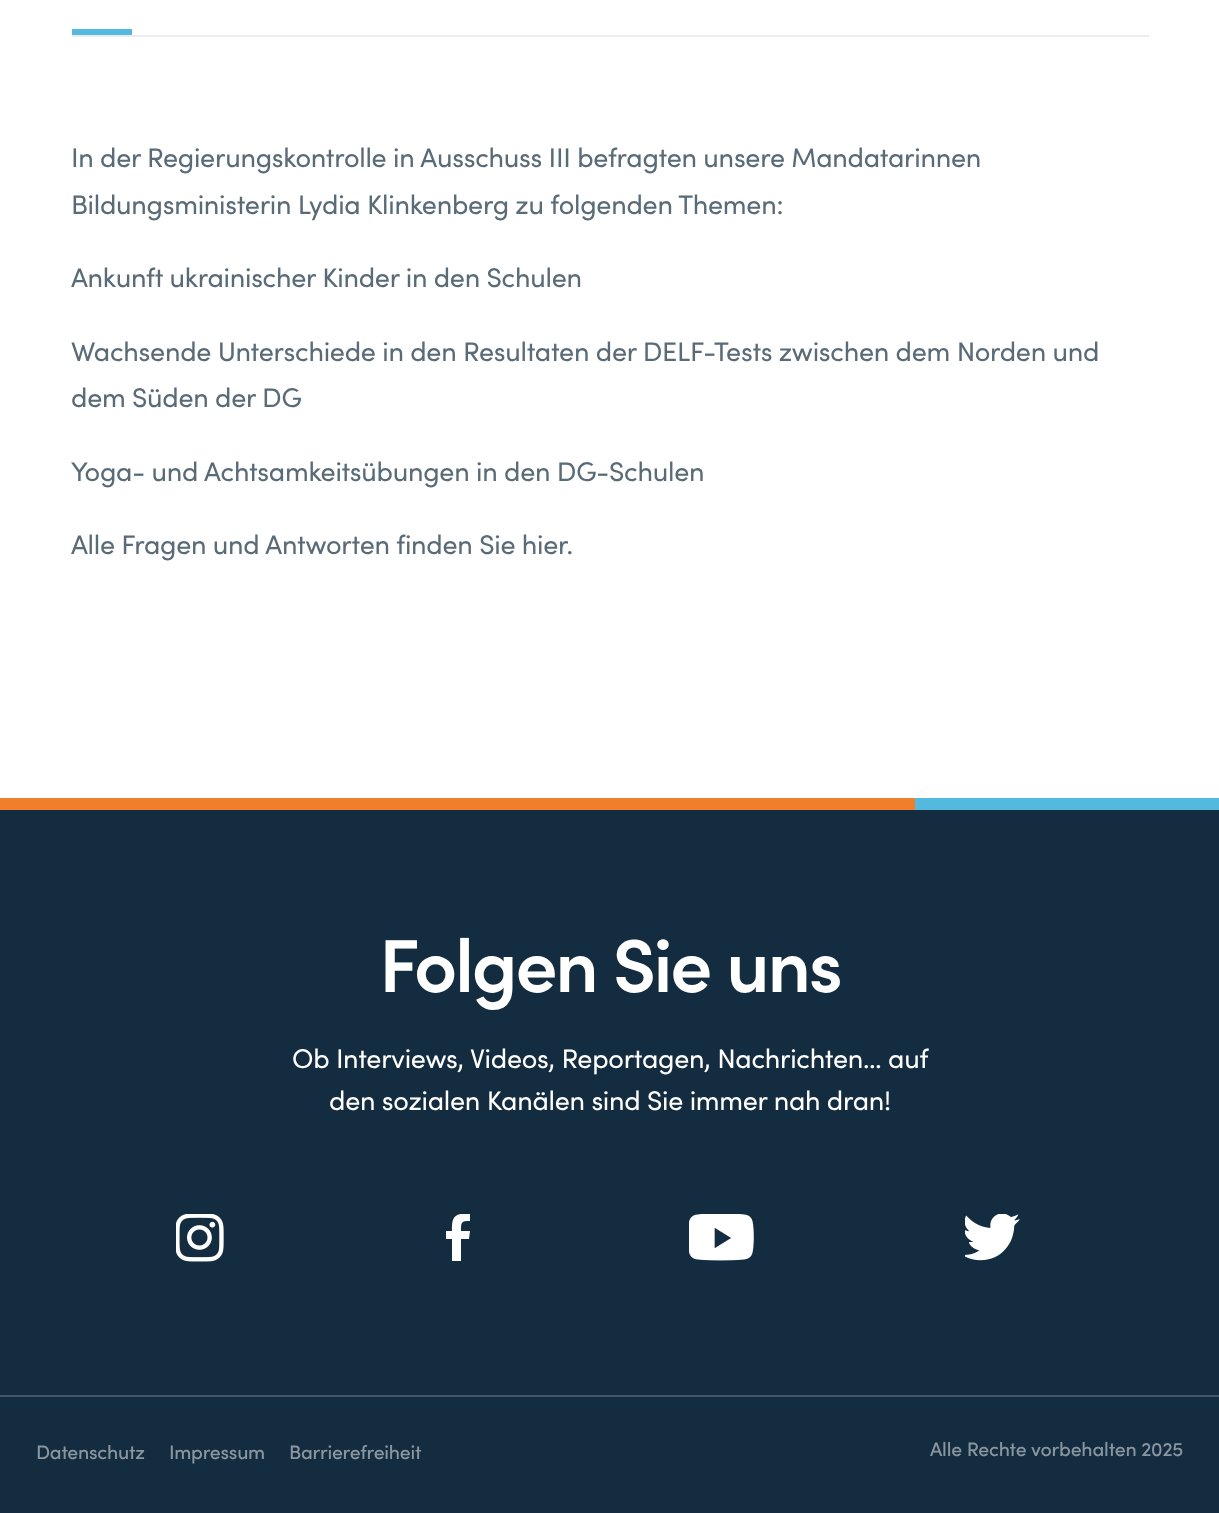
(async () => {
  const canvas = document.querySelector("canvas");
  canvas.width = 1219;
  canvas.height = 1513;
  const ctx = canvas.getContext("2d");
  ctx.miterLimit = 4;
  ctx.fontKerning = "normal";
  async function loadImage(src) {
    const img = new Image();
    img.src = src;
    await img.decode();
    return img;
  }
  let path;

  ctx.fillStyle = "#ffffff";
  ctx.fillRect(0, 0, 1219, 1513);
  for (const [x, y, w, h, color] of [
    [72, 35, 1077, 2, "#ececec"],
    [72, 29, 60, 6, "#53b9df"],
    [0, 810, 1219, 585, "#142c3f"],
    [0, 798, 915, 12, "#f07e2a"],
    [915, 798, 304, 12, "#53b9df"],
  ]) {
    ctx.fillStyle = color;
    ctx.fillRect(x, y, w, h);
  }
  ctx.drawImage(await loadImage("img/1.png"), 176, 1214, 48, 48);
  ctx.save();
  ctx.beginPath();
  ctx.rect(446, 1214, 27, 48);
  ctx.clip();
  ctx.fillStyle = "#ffffff";
  path = new Path2D("M463 1214C452 1214 452 1222 452 1231H444V1239H452V1261H461V1239H469L470 1231H461C461 1222 461 1221 470 1221V1214Z");
  ctx.fill(path);
  ctx.restore();
  ctx.drawImage(await loadImage("img/2.png"), 689, 1214, 65, 47);
  ctx.drawImage(await loadImage("img/3.png"), 965, 1214, 55, 47);
  ctx.fillStyle = "#142c3f";
  ctx.fillRect(0, 1397, 1219, 116);
  ctx.fillStyle = "#435665";
  ctx.fillRect(0, 1395, 1219, 2);
  ctx.letterSpacing = "-0.27px";
  ctx.font = "27px Sofia";
  ctx.fillStyle = "#5a6b78";
  for (const [text, x, y] of [
    ["In der Regierungskontrolle in Ausschuss III befragten unsere Mandatarinnen", 71, 167],
    ["Bildungsministerin Lydia Klinkenberg zu folgenden Themen:", 71, 214],
    ["Ankunft ukrainischer Kinder in den Schulen", 71, 287],
    ["Wachsende Unterschiede in den Resultaten der DELF-Tests zwischen dem Norden und", 71, 361],
    ["dem Süden der DG", 71, 407],
    ["Yoga- und Achtsamkeitsübungen in den DG-Schulen", 71, 481],
    ["Alle Fragen und Antworten finden Sie hier.", 71, 554],
  ]) {
    ctx.fillText(text, x, y);
  }
  ctx.letterSpacing = "-2.25px";
  ctx.font = "600 75px Sofia";
  ctx.fillStyle = "#ffffff";
  ctx.fillText("Folgen Sie uns", 379, 992);
  ctx.letterSpacing = "-0.27px";
  ctx.font = "27px Sofia";
  ctx.fillText("Ob Interviews, Videos, Reportagen, Nachrichten… auf", 292, 1068);
  ctx.fillText("den sozialen Kanälen sind Sie immer nah dran!", 329, 1110);
  ctx.font = "500 19.5px Sofia";
  ctx.fillStyle = "#8a969f";
  for (const [text, x, y] of [
    ["Datenschutz", 36, 1459],
    ["Impressum", 169, 1459],
    ["Barrierefreiheit", 289, 1459],
  ]) {
    ctx.fillText(text, x, y);
  }
  ctx.letterSpacing = "-0.2px";
  ctx.fillText("Alle Rechte vorbehalten 2025", 930, 1456);
})();
